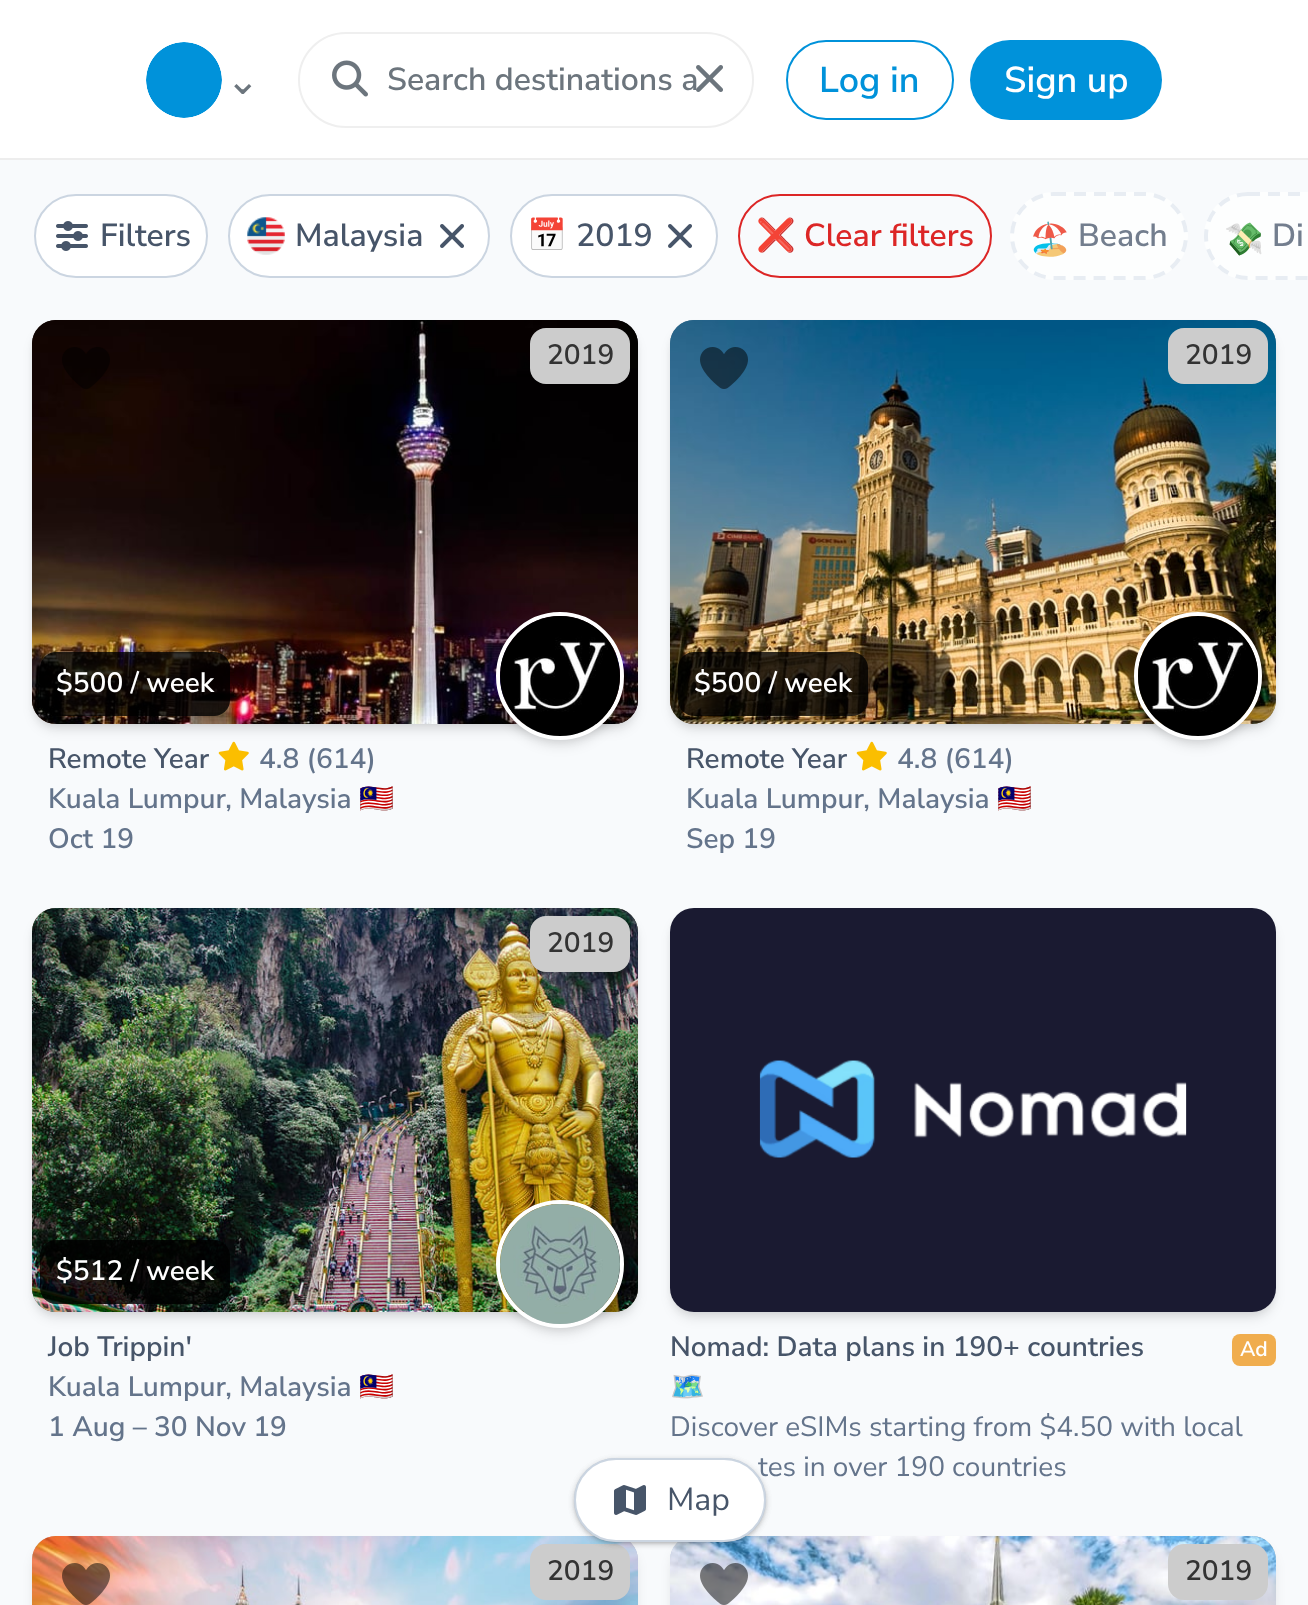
(async () => {
  const canvas = document.querySelector("canvas");
  canvas.width = 1308;
  canvas.height = 1605;
  const ctx = canvas.getContext("2d");
  ctx.miterLimit = 4;
  ctx.fontKerning = "normal";
  async function loadImage(src) {
    const img = new Image();
    img.src = src;
    await img.decode();
    return img;
  }
  let path;

  ctx.fillStyle = "#f8fafc";
  ctx.fillRect(0, 0, 1308, 1605);
  ctx.fillStyle = "#ffffff";
  ctx.fillRect(0, 0, 1308, 158);
  ctx.fillStyle = "#ededed";
  ctx.fillRect(0, 158, 1308, 2);
  ctx.drawImage(await loadImage("img/1.png"), 146, 42, 76, 76);
  ctx.beginPath();
  ctx.roundRect(299, 33, 454, 94, 47);
  ctx.strokeStyle = "#efefef";
  ctx.lineWidth = 2;
  ctx.stroke();
  ctx.drawImage(await loadImage("img/2.png"), 332, 60, 36, 37);
  ctx.beginPath();
  ctx.roundRect(787, 41, 166, 78, 39);
  ctx.strokeStyle = "#0092da";
  ctx.stroke();
  ctx.fillStyle = "#0092da";
  ctx.beginPath();
  ctx.roundRect(970, 40, 192, 80, 40);
  ctx.fill();
  ctx.fillStyle = "#ffffff";
  ctx.beginPath();
  ctx.roundRect(35, 195, 172, 82, 41);
  ctx.fill();
  ctx.strokeStyle = "#cbd5e1";
  ctx.stroke();
  ctx.drawImage(await loadImage("img/4.png"), 56, 221, 32, 30);
  ctx.beginPath();
  ctx.roundRect(229, 195, 260, 82, 41);
  ctx.fill();
  ctx.stroke();
  ctx.drawImage(await loadImage("img/5.png"), 247, 217, 38, 38);
  ctx.drawImage(await loadImage("img/6.png"), 440, 224, 24, 24);
  ctx.beginPath();
  ctx.roundRect(511, 195, 206, 82, 41);
  ctx.fill();
  ctx.stroke();
  ctx.drawImage(await loadImage("img/6.png"), 668, 224, 24, 24);
  ctx.beginPath();
  ctx.roundRect(739, 195, 252, 82, 41);
  ctx.strokeStyle = "#dc2626";
  ctx.stroke();
  ctx.fillStyle = "#fdfefe";
  ctx.beginPath();
  ctx.roundRect(1010, 192, 178, 88, 44);
  ctx.fill();
  path = new Path2D("M1054 194H1144C1167 194 1186 213 1186 236C1186 259 1167 278 1144 278H1054C1031 278 1012 259 1012 236C1012 213 1031 194 1054 194Z");
  ctx.strokeStyle = "#e8edf3";
  ctx.lineWidth = 4;
  ctx.setLineDash([12, 8]);
  ctx.stroke(path);
  ctx.beginPath();
  ctx.roundRect(1204, 192, 104, 88, [44, 0, 0, 44]);
  ctx.fill();
  path = new Path2D("M1248 194H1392C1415 194 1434 213 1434 236C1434 259 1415 278 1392 278H1248C1225 278 1206 259 1206 236C1206 213 1225 194 1248 194Z");
  ctx.stroke(path);
  ctx.fillStyle = "rgba(0, 0, 0, 0.1)";
  ctx.filter = "blur(4px)";
  ctx.beginPath();
  ctx.roundRect(36, 328, 598, 396, 20);
  ctx.fill();
  ctx.filter = "none";
  ctx.drawImage(await loadImage("img/11.png"), 218, 741, 31, 30);
  ctx.filter = "blur(6px)";
  ctx.beginPath();
  ctx.roundRect(34, 330, 602, 400, 22);
  ctx.fill();
  ctx.filter = "none";
  ctx.drawImage(await loadImage("img/7.png"), 32, 320, 606, 404);
  ctx.drawImage(await loadImage("img/8.png"), 32, 320, 606, 404);
  ctx.fillStyle = "#cccccc";
  ctx.beginPath();
  ctx.roundRect(530, 328, 100, 56, 16);
  ctx.fill();
  ctx.fillStyle = "rgba(0, 0, 0, 0.8)";
  ctx.beginPath();
  ctx.roundRect(40, 652, 190, 64, 16);
  ctx.fill();
  ctx.drawImage(await loadImage("img/9.png"), 62, 347, 48, 42);
  ctx.fillStyle = "rgba(0, 0, 0, 0.1)";
  ctx.filter = "blur(4px)";
  ctx.beginPath();
  ctx.roundRect(500, 620, 120, 120, 60);
  ctx.fill();
  ctx.filter = "none";
  ctx.filter = "blur(6px)";
  ctx.beginPath();
  ctx.roundRect(498, 622, 124, 124, 62);
  ctx.fill();
  ctx.filter = "none";
  ctx.beginPath();
  ctx.arc(560, 676, 62, 0, Math.PI * 2);
  ctx.strokeStyle = "#ffffff";
  ctx.setLineDash([]);
  ctx.stroke();
  ctx.drawImage(await loadImage("img/10.png"), 500, 616, 120, 120);
  ctx.filter = "blur(4px)";
  ctx.beginPath();
  ctx.roundRect(674, 328, 598, 396, 20);
  ctx.fill();
  ctx.filter = "none";
  ctx.drawImage(await loadImage("img/11.png"), 856, 741, 31, 30);
  ctx.filter = "blur(6px)";
  ctx.beginPath();
  ctx.roundRect(672, 330, 602, 400, 22);
  ctx.fill();
  ctx.filter = "none";
  ctx.drawImage(await loadImage("img/12.png"), 670, 320, 606, 404);
  ctx.drawImage(await loadImage("img/13.png"), 670, 320, 606, 404);
  ctx.fillStyle = "#cccccc";
  ctx.beginPath();
  ctx.roundRect(1168, 328, 100, 56, 16);
  ctx.fill();
  ctx.fillStyle = "rgba(0, 0, 0, 0.8)";
  ctx.beginPath();
  ctx.roundRect(678, 652, 190, 64, 16);
  ctx.fill();
  ctx.drawImage(await loadImage("img/14.png"), 700, 347, 48, 42);
  ctx.fillStyle = "rgba(0, 0, 0, 0.1)";
  ctx.filter = "blur(4px)";
  ctx.beginPath();
  ctx.roundRect(1138, 620, 120, 120, 60);
  ctx.fill();
  ctx.filter = "none";
  ctx.filter = "blur(6px)";
  ctx.beginPath();
  ctx.roundRect(1136, 622, 124, 124, 62);
  ctx.fill();
  ctx.filter = "none";
  ctx.beginPath();
  ctx.arc(1198, 676, 62, 0, Math.PI * 2);
  ctx.stroke();
  ctx.drawImage(await loadImage("img/15.png"), 1138, 616, 120, 120);
  ctx.filter = "blur(4px)";
  ctx.beginPath();
  ctx.roundRect(36, 916, 598, 396, 20);
  ctx.fill();
  ctx.filter = "none";
  ctx.filter = "blur(6px)";
  ctx.beginPath();
  ctx.roundRect(34, 918, 602, 400, 22);
  ctx.fill();
  ctx.filter = "none";
  ctx.drawImage(await loadImage("img/16.png"), 32, 908, 606, 404);
  ctx.drawImage(await loadImage("img/17.png"), 32, 908, 606, 404);
  ctx.fillStyle = "#cccccc";
  ctx.beginPath();
  ctx.roundRect(530, 916, 100, 56, 16);
  ctx.fill();
  ctx.fillStyle = "rgba(0, 0, 0, 0.8)";
  ctx.beginPath();
  ctx.roundRect(40, 1240, 190, 64, 16);
  ctx.fill();
  ctx.drawImage(await loadImage("img/18.png"), 62, 935, 48, 42);
  ctx.fillStyle = "rgba(0, 0, 0, 0.1)";
  ctx.filter = "blur(4px)";
  ctx.beginPath();
  ctx.roundRect(500, 1208, 120, 120, 60);
  ctx.fill();
  ctx.filter = "none";
  ctx.filter = "blur(6px)";
  ctx.beginPath();
  ctx.roundRect(498, 1210, 124, 124, 62);
  ctx.fill();
  ctx.filter = "none";
  ctx.beginPath();
  ctx.arc(560, 1264, 62, 0, Math.PI * 2);
  ctx.stroke();
  ctx.drawImage(await loadImage("img/19.png"), 500, 1204, 120, 120);
  ctx.filter = "blur(4px)";
  ctx.beginPath();
  ctx.roundRect(674, 916, 598, 396, 20);
  ctx.fill();
  ctx.filter = "none";
  ctx.filter = "blur(6px)";
  ctx.beginPath();
  ctx.roundRect(672, 918, 602, 400, 22);
  ctx.fill();
  ctx.filter = "none";
  ctx.drawImage(await loadImage("img/20.png"), 670, 908, 606, 404);
  ctx.fillStyle = "#f0ad4e";
  ctx.beginPath();
  ctx.roundRect(1232, 1334, 44, 32, 8);
  ctx.fill();
  ctx.fillStyle = "rgba(0, 0, 0, 0.1)";
  ctx.filter = "blur(6px)";
  ctx.beginPath();
  ctx.roundRect(34, 1546, 602, 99, 22);
  ctx.fill();
  ctx.filter = "none";
  ctx.drawImage(await loadImage("img/22.png"), 32, 1536, 606, 24);
  ctx.drawImage(await loadImage("img/23.png"), 32, 1536, 606, 69);
  ctx.drawImage(await loadImage("img/21.png"), 62, 1563, 48, 42);
  ctx.fillStyle = "#cccccc";
  ctx.beginPath();
  ctx.roundRect(530, 1544, 100, 56, 16);
  ctx.fill();
  ctx.fillStyle = "rgba(0, 0, 0, 0.1)";
  ctx.filter = "blur(6px)";
  ctx.beginPath();
  ctx.roundRect(672, 1546, 602, 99, 22);
  ctx.fill();
  ctx.filter = "none";
  ctx.drawImage(await loadImage("img/25.png"), 670, 1536, 606, 24);
  ctx.drawImage(await loadImage("img/26.png"), 670, 1536, 606, 69);
  ctx.drawImage(await loadImage("img/24.png"), 700, 1563, 48, 42);
  ctx.fillStyle = "#cccccc";
  ctx.beginPath();
  ctx.roundRect(1168, 1544, 100, 56, 16);
  ctx.fill();
  ctx.fillStyle = "rgba(0, 0, 0, 0.1)";
  ctx.filter = "blur(2px)";
  ctx.beginPath();
  ctx.roundRect(576, 1462, 188, 80, 40);
  ctx.fill();
  ctx.filter = "none";
  ctx.filter = "blur(3px)";
  ctx.beginPath();
  ctx.roundRect(574, 1460, 192, 84, 42);
  ctx.fill();
  ctx.filter = "none";
  ctx.letterSpacing = "17px";
  ctx.font = "40px DejaVu Sans";
  ctx.fillStyle = "#6c757d";
  ctx.fillText("⌄", 226, 94);
  ctx.letterSpacing = "0px";
  ctx.font = "600 32px Nunito Sans";
  ctx.fillText("Search destinations a", 387, 90);
  ctx.drawImage(await loadImage("img/3.png"), 696, 65, 27, 27);
  ctx.font = "600 36px Nunito Sans";
  ctx.fillStyle = "#0092da";
  ctx.fillText("Log in", 819, 92);
  ctx.fillStyle = "#ffffff";
  ctx.fillText("Sign up", 1004, 92);
  ctx.font = "600 32px Nunito Sans";
  ctx.fillStyle = "#475569";
  ctx.fillText("Filters", 100, 246);
  ctx.fillText("Malaysia", 295, 246);
  ctx.font = "32px Noto Color Emoji";
  ctx.fillText("📅", 527, 246);
  ctx.font = "600 32px Nunito Sans";
  ctx.fillText("2019", 576, 246);
  ctx.font = "32px Noto Color Emoji";
  ctx.fillStyle = "#dc2626";
  ctx.fillText("❌", 756, 246);
  ctx.font = "600 32px Nunito Sans";
  ctx.fillText("Clear filters", 804, 246);
  ctx.font = "32px Noto Color Emoji";
  ctx.fillStyle = "#737e8e";
  ctx.fillText("🏖", 1030, 250);
  ctx.font = "600 32px Nunito Sans";
  ctx.fillText("Beach", 1078, 246);
  ctx.font = "32px Noto Color Emoji";
  ctx.fillText("💸️", 1224, 250);
  ctx.font = "600 32px Nunito Sans";
  ctx.fillText("Di", 1272, 246);
  ctx.font = "600 28px Nunito Sans";
  ctx.fillStyle = "#333333";
  ctx.fillText("2019", 547, 364);
  ctx.fillStyle = "#ffffff";
  ctx.fillText("$500 / week", 56, 692);
  ctx.fillStyle = "#475569";
  ctx.fillText("Remote Year", 48, 768);
  ctx.fillStyle = "#64748b";
  ctx.fillText("4.8 (614)", 259, 768);
  ctx.fillText("Kuala Lumpur, Malaysia", 48, 808);
  ctx.font = "28px Noto Color Emoji";
  ctx.fillText("🇲🇾", 359, 808);
  ctx.font = "600 28px Nunito Sans";
  ctx.fillText("Oct 19", 48, 848);
  ctx.fillStyle = "#333333";
  ctx.fillText("2019", 1185, 364);
  ctx.fillStyle = "#ffffff";
  ctx.fillText("$500 / week", 694, 692);
  ctx.fillStyle = "#475569";
  ctx.fillText("Remote Year", 686, 768);
  ctx.fillStyle = "#64748b";
  ctx.fillText("4.8 (614)", 897, 768);
  ctx.fillText("Kuala Lumpur, Malaysia", 686, 808);
  ctx.font = "28px Noto Color Emoji";
  ctx.fillText("🇲🇾", 997, 808);
  ctx.font = "600 28px Nunito Sans";
  ctx.fillText("Sep 19", 686, 848);
  ctx.fillStyle = "#333333";
  ctx.fillText("2019", 547, 952);
  ctx.fillStyle = "#ffffff";
  ctx.fillText("$512 / week", 56, 1280);
  ctx.fillStyle = "#475569";
  ctx.fillText("Job Trippin'", 48, 1356);
  ctx.fillStyle = "#64748b";
  ctx.fillText("Kuala Lumpur, Malaysia", 48, 1396);
  ctx.font = "28px Noto Color Emoji";
  ctx.fillText("🇲🇾", 359, 1396);
  ctx.font = "600 28px Nunito Sans";
  ctx.fillText("1 Aug – 30 Nov 19", 48, 1436);
  ctx.fillStyle = "#475569";
  ctx.fillText("Nomad: Data plans in 190+ countries", 670, 1356);
  ctx.font = "28px Noto Color Emoji";
  ctx.fillText("🗺️", 670, 1396);
  ctx.font = "600 21px Nunito Sans";
  ctx.fillStyle = "#ffffff";
  ctx.fillText("Ad", 1240, 1356);
  ctx.font = "28px Nunito Sans";
  ctx.fillStyle = "#64748b";
  ctx.fillText("Discover eSIMs starting from $4.50 with local", 670, 1436);
  ctx.fillText("tes in over 190 countries", 758, 1476);
  ctx.font = "600 28px Nunito Sans";
  ctx.fillStyle = "#333333";
  ctx.fillText("2019", 547, 1580);
  ctx.fillText("2019", 1185, 1580);
  ctx.beginPath();
  ctx.roundRect(575, 1459, 190, 82, 41);
  ctx.strokeStyle = "#cbd5e1";
  ctx.lineWidth = 2;
  ctx.stroke();
  ctx.fillStyle = "rgba(0, 0, 0, 0.1)";
  ctx.filter = "blur(3px)";
  ctx.beginPath();
  ctx.roundRect(574, 1460, 192, 84, 42);
  ctx.fill();
  ctx.filter = "none";
  ctx.filter = "blur(2px)";
  ctx.beginPath();
  ctx.roundRect(576, 1462, 188, 80, 40);
  ctx.fill();
  ctx.filter = "none";
  ctx.fillStyle = "#ffffff";
  ctx.beginPath();
  ctx.roundRect(575, 1459, 190, 82, 41);
  ctx.fill();
  ctx.stroke();
  ctx.font = "32px Nunito Sans";
  ctx.fillStyle = "#475569";
  ctx.fillText("Map", 667, 1510);
  ctx.drawImage(await loadImage("img/27.png"), 614, 1485, 32, 30);
})();
